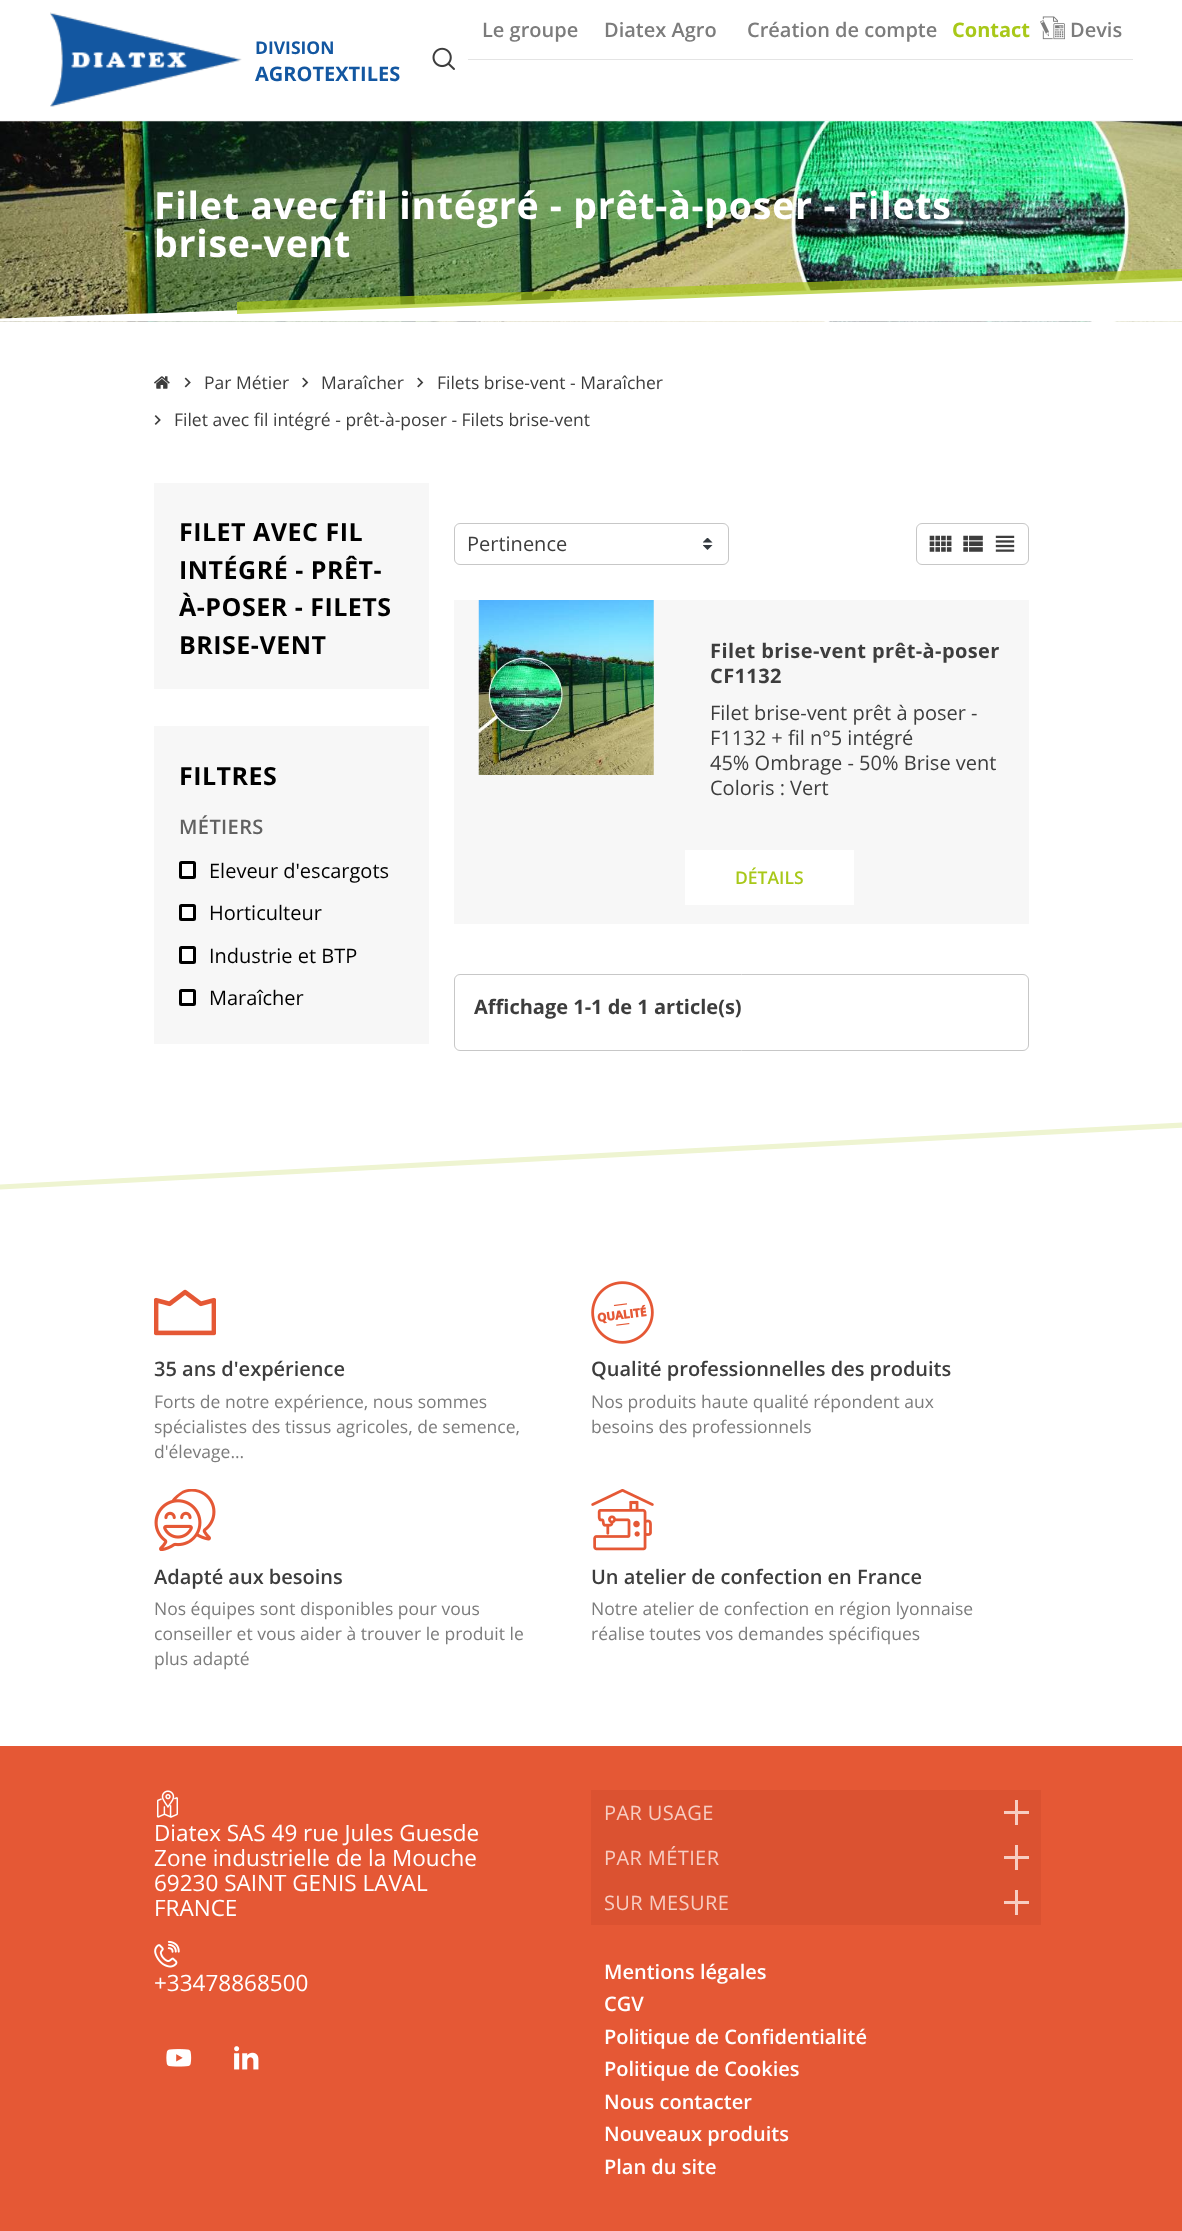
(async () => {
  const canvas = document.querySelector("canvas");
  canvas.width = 1182;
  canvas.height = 2231;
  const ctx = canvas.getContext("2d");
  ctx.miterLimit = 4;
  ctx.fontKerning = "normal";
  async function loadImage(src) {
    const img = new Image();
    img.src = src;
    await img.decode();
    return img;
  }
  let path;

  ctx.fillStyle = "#ffffff";
  ctx.fillRect(0, 0, 1182, 2231);
  ctx.fillStyle = "#f7f7f7";
  ctx.fillRect(0, 120, 1182, 1);
  ctx.fillStyle = "#e4e4e4";
  ctx.fillRect(468, 59, 665, 1);
  ctx.drawImage(await loadImage("img/1.png"), 1040, 16, 25, 24);
  ctx.drawImage(await loadImage("img/2.png"), 50, 12, 192, 95);
  ctx.drawImage(await loadImage("img/3.png"), 432, 47, 23, 23);
  ctx.drawImage(await loadImage("img/4.png"), 0, 121, 1182, 201);
  ctx.save();
  ctx.beginPath();
  ctx.rect(0, 121, 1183, 200);
  ctx.clip();
  ctx.fillStyle = "#ffffff";
  path = new Path2D("M-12 319L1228 276L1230 335L-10 378Z");
  ctx.fill(path);
  ctx.restore();
  ctx.fillStyle = "rgba(168, 200, 25, 0.7)";
  path = new Path2D("M237 302L1182 269V281L237 314Z");
  ctx.fill(path);
  ctx.drawImage(await loadImage("img/5.png"), 154, 376, 16, 13);
  ctx.drawImage(await loadImage("img/6.png"), 184, 377, 7, 11);
  ctx.drawImage(await loadImage("img/7.png"), 302, 377, 7, 11);
  ctx.drawImage(await loadImage("img/7.png"), 417, 377, 7, 11);
  ctx.drawImage(await loadImage("img/8.png"), 154, 415, 7, 10);
  ctx.fillStyle = "#f7f7f7";
  ctx.fillRect(154, 483, 275, 206);
  ctx.fillRect(154, 726, 275, 318);
  ctx.fillStyle = "#ffffff";
  ctx.beginPath();
  ctx.roundRect(180.5, 862.5, 14, 15, 1);
  ctx.fill();
  ctx.strokeStyle = "#000000";
  ctx.lineWidth = 3;
  ctx.stroke();
  ctx.beginPath();
  ctx.roundRect(180.5, 905.5, 14, 14, 1);
  ctx.fill();
  ctx.stroke();
  ctx.beginPath();
  ctx.roundRect(180.5, 947.5, 14, 15, 1);
  ctx.fill();
  ctx.stroke();
  ctx.beginPath();
  ctx.roundRect(180.5, 990.5, 14, 14, 1);
  ctx.fill();
  ctx.stroke();
  ctx.drawImage(await loadImage("img/9.png"), 703, 538, 10, 12);
  ctx.beginPath();
  ctx.roundRect(454.5, 523.5, 274, 41, 5.5);
  ctx.strokeStyle = "#c7c7c7";
  ctx.lineWidth = 1;
  ctx.stroke();
  ctx.beginPath();
  ctx.roundRect(916.5, 523.5, 112, 41, 5.5);
  ctx.stroke();
  ctx.drawImage(await loadImage("img/10.png"), 929, 535, 23, 17);
  ctx.drawImage(await loadImage("img/11.png"), 963, 535, 20, 17);
  ctx.drawImage(await loadImage("img/12.png"), 995, 535, 20, 17);
  ctx.fillStyle = "#f7f7f7";
  ctx.fillRect(454, 600, 575, 324);
  ctx.drawImage(await loadImage("img/13.png"), 478, 600, 176, 175);
  ctx.fillStyle = "#ffffff";
  ctx.fillRect(685, 850, 169, 55);
  ctx.beginPath();
  ctx.roundRect(454.5, 974.5, 574, 76, 5.5);
  ctx.stroke();
  ctx.fillStyle = "#eef4d1";
  path = new Path2D("M-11 1185L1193 1122L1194 1127L-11 1190Z");
  ctx.fill(path);
  ctx.drawImage(await loadImage("img/14.png"), 154, 1289, 62, 47);
  ctx.drawImage(await loadImage("img/15.png"), 591, 1281, 63, 63);
  ctx.drawImage(await loadImage("img/16.png"), 154, 1489, 62, 62);
  ctx.drawImage(await loadImage("img/17.png"), 591, 1489, 63, 62);
  ctx.fillStyle = "#e55835";
  ctx.fillRect(0, 1746, 1182, 485);
  ctx.drawImage(await loadImage("img/18.png"), 156, 1790, 23, 28);
  ctx.drawImage(await loadImage("img/19.png"), 154, 1940, 26, 28);
  ctx.drawImage(await loadImage("img/20.png"), 166, 2049, 26, 18);
  ctx.drawImage(await loadImage("img/21.png"), 234, 2046, 25, 24);
  for (const [x, y, w, h, color] of [
    [591, 1790, 450, 135, "#db5231"],
    [1015, 1800, 3, 25, "#f7cdc2"],
    [1004, 1811, 25, 3, "#f7cdc2"],
    [1015, 1845, 3, 25, "#f7cdc2"],
    [1004, 1856, 25, 3, "#f7cdc2"],
    [1015, 1890, 3, 25, "#f7cdc2"],
    [1004, 1901, 25, 3, "#f7cdc2"],
  ]) {
    ctx.fillStyle = color;
    ctx.fillRect(x, y, w, h);
  }
  ctx.font = "600 20px Open Sans";
  ctx.fillStyle = "#7c7c7c";
  for (const [text, x, y] of [
    ["Le groupe", 482, 37],
    ["Diatex Agro", 604, 37],
    ["Création de compte", 747, 37],
  ]) {
    ctx.fillText(text, x, y);
  }
  ctx.font = "bold 20px Open Sans";
  ctx.fillStyle = "#a8c819";
  ctx.fillText("Contact", 952, 37);
  ctx.font = "600 20px Open Sans";
  ctx.fillStyle = "#7c7c7c";
  ctx.fillText("Devis", 1070, 37);
  ctx.font = "bold 17.5px Open Sans";
  ctx.fillStyle = "#1357a1";
  ctx.fillText("DIVISION", 255, 54);
  ctx.font = "bold 20px Open Sans";
  ctx.fillText("AGROTEXTILES", 255, 81);
  ctx.letterSpacing = "0.75px";
  ctx.font = "bold 37.5px Open Sans";
  ctx.fillStyle = "#ffffff";
  ctx.fillText("Filet avec fil intégré - prêt-à-poser - Filets", 154, 219);
  ctx.fillText("brise-vent", 154, 257);
  ctx.letterSpacing = "0px";
  ctx.font = "17.5px Open Sans";
  ctx.fillStyle = "#3d3d3d";
  for (const [text, x, y] of [
    ["Par Métier", 204, 389],
    ["Maraîcher", 321, 389],
    ["Filets brise-vent - Maraîcher", 437, 389],
    ["Filet avec fil intégré - prêt-à-poser - Filets brise-vent", 174, 426],
  ]) {
    ctx.fillText(text, x, y);
  }
  ctx.letterSpacing = "0.5px";
  ctx.font = "bold 25px Open Sans";
  ctx.fillStyle = "#000000";
  for (const [text, x, y] of [
    ["FILET AVEC FIL", 179, 541],
    ["INTÉGRÉ - PRÊT-", 179, 579],
    ["À-POSER - FILETS", 179, 616],
    ["BRISE-VENT", 179, 654],
    ["FILTRES", 179, 785],
  ]) {
    ctx.fillText(text, x, y);
  }
  ctx.letterSpacing = "0.4px";
  ctx.font = "600 20px Open Sans";
  ctx.fillStyle = "#616161";
  ctx.fillText("MÉTIERS", 179, 834);
  ctx.letterSpacing = "0px";
  ctx.font = "20px Open Sans";
  ctx.fillStyle = "#000000";
  for (const [text, x, y] of [
    ["Eleveur d'escargots", 209, 878],
    ["Horticulteur", 209, 920],
    ["Industrie et BTP", 209, 963],
    ["Maraîcher", 209, 1005],
  ]) {
    ctx.fillText(text, x, y);
  }
  ctx.fillStyle = "#3d3d3d";
  ctx.fillText("Pertinence", 467, 551);
  ctx.letterSpacing = "0.4px";
  ctx.font = "bold 20px Open Sans";
  ctx.fillText("Filet brise-vent prêt-à-poser", 710, 658);
  ctx.fillText("CF1132", 710, 683);
  ctx.letterSpacing = "0px";
  ctx.font = "20px Open Sans";
  for (const [text, x, y] of [
    ["Filet brise-vent prêt à poser -", 710, 720],
    ["F1132 + fil n°5 intégré", 710, 745],
    ["45% Ombrage - 50% Brise vent", 710, 770],
    ["Coloris : Vert", 710, 795],
  ]) {
    ctx.fillText(text, x, y);
  }
  ctx.font = "600 17.5px Open Sans";
  ctx.fillStyle = "#a8c819";
  ctx.fillText("DÉTAILS", 735, 884);
  ctx.font = "bold 20px Open Sans";
  ctx.fillStyle = "#3d3d3d";
  ctx.fillText("Affichage 1-1 de 1 article(s)", 474, 1014);
  ctx.font = "600 20px Open Sans";
  ctx.fillText("35 ans d'expérience", 154, 1376);
  ctx.font = "17.5px Open Sans";
  ctx.fillStyle = "#7c7c7c";
  for (const [text, x, y] of [
    ["Forts de notre expérience, nous sommes", 154, 1408],
    ["spécialistes des tissus agricoles, de semence,", 154, 1433],
    ["d'élevage...", 154, 1458],
  ]) {
    ctx.fillText(text, x, y);
  }
  ctx.font = "600 20px Open Sans";
  ctx.fillStyle = "#3d3d3d";
  ctx.fillText("Qualité professionnelles des produits", 591, 1376);
  ctx.font = "17.5px Open Sans";
  ctx.fillStyle = "#7c7c7c";
  ctx.fillText("Nos produits haute qualité répondent aux", 591, 1408);
  ctx.fillText("besoins des professionnels", 591, 1433);
  ctx.font = "600 20px Open Sans";
  ctx.fillStyle = "#3d3d3d";
  ctx.fillText("Adapté aux besoins", 154, 1584);
  ctx.font = "17.5px Open Sans";
  ctx.fillStyle = "#7c7c7c";
  for (const [text, x, y] of [
    ["Nos équipes sont disponibles pour vous", 154, 1615],
    ["conseiller et vous aider à trouver le produit le", 154, 1640],
    ["plus adapté", 154, 1665],
  ]) {
    ctx.fillText(text, x, y);
  }
  ctx.font = "600 20px Open Sans";
  ctx.fillStyle = "#3d3d3d";
  ctx.fillText("Un atelier de confection en France", 591, 1584);
  ctx.font = "17.5px Open Sans";
  ctx.fillStyle = "#7c7c7c";
  ctx.fillText("Notre atelier de confection en région lyonnaise", 591, 1615);
  ctx.fillText("réalise toutes vos demandes spécifiques", 591, 1640);
  ctx.font = "22.5px Open Sans";
  ctx.fillStyle = "#ffffff";
  for (const [text, x, y] of [
    ["Diatex SAS 49 rue Jules Guesde", 154, 1841],
    ["Zone industrielle de la Mouche", 154, 1866],
    ["69230 SAINT GENIS LAVAL", 154, 1891],
    ["FRANCE", 154, 1916],
    ["+33478868500", 154, 1991],
  ]) {
    ctx.fillText(text, x, y);
  }
  ctx.letterSpacing = "0.4px";
  ctx.font = "20px Open Sans";
  ctx.fillStyle = "#f7cdc2";
  for (const [text, x, y] of [
    ["PAR USAGE", 604, 1820],
    ["PAR MÉTIER", 604, 1865],
    ["SUR MESURE", 604, 1910],
  ]) {
    ctx.fillText(text, x, y);
  }
  ctx.letterSpacing = "0px";
  ctx.font = "600 20px Open Sans";
  ctx.fillStyle = "#ffffff";
  for (const [text, x, y] of [
    ["Mentions légales", 604, 1979],
    ["CGV", 604, 2011],
    ["Politique de Confidentialité", 604, 2044],
    ["Politique de Cookies", 604, 2076],
    ["Nous contacter", 604, 2109],
    ["Nouveaux produits", 604, 2141],
    ["Plan du site", 604, 2174],
  ]) {
    ctx.fillText(text, x, y);
  }
})();
